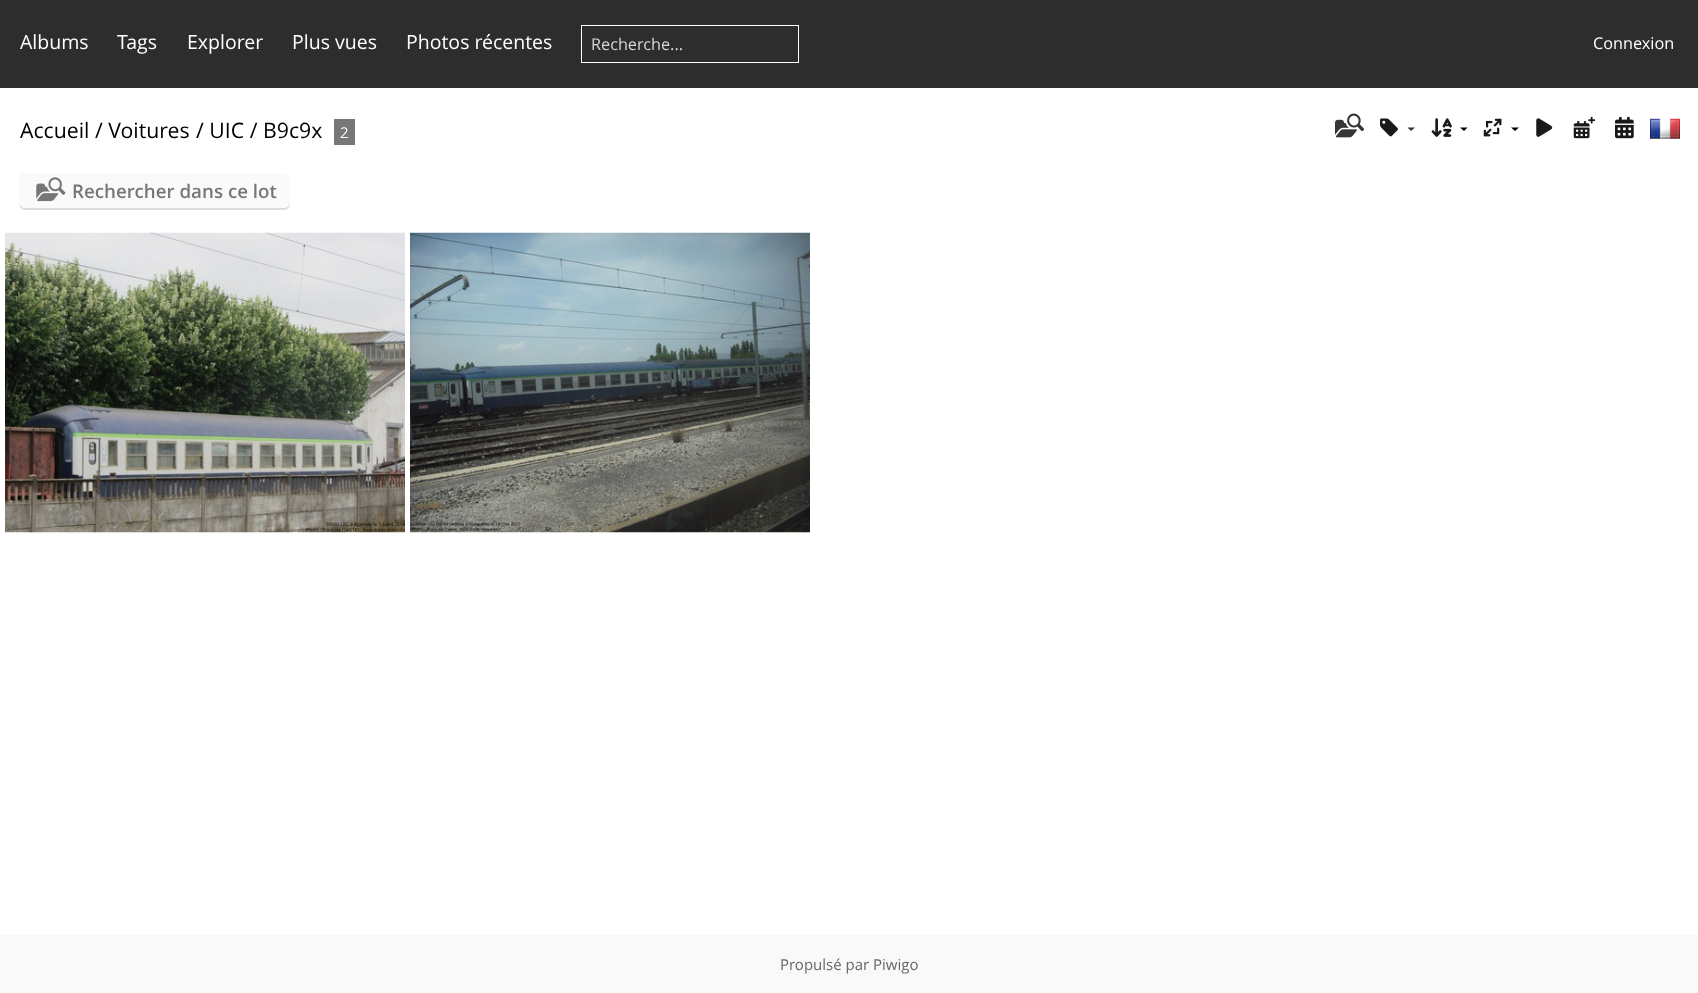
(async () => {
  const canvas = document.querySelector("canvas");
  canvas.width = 1698;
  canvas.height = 993;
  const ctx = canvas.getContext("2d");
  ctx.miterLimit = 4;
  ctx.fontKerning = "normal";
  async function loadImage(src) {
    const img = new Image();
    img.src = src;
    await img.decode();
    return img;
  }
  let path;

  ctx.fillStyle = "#ffffff";
  ctx.fillRect(0, 0, 1698, 993);
  ctx.fillStyle = "#2d2d2d";
  ctx.fillRect(0, 0, 1698, 88);
  ctx.strokeStyle = "#ffffff";
  ctx.strokeRect(581.5, 25.5, 217, 37);
  ctx.fillStyle = "#777777";
  ctx.fillRect(334, 119, 21, 26);
  ctx.drawImage(await loadImage("img/1.png"), 1335, 113, 30, 25);
  ctx.drawImage(await loadImage("img/2.png"), 1380, 118, 18, 19);
  ctx.fillStyle = "#363636";
  path = new Path2D("M1407.5 127.5H1415L1411 131Z");
  ctx.fill(path);
  ctx.drawImage(await loadImage("img/3.png"), 1431, 118, 21, 19);
  ctx.fillStyle = "#000000";
  path = new Path2D("M1460 127.5H1467.5L1464 131ZM1511 127.5H1519L1515 131Z");
  ctx.fill(path);
  ctx.drawImage(await loadImage("img/4.png"), 1573, 116, 22, 23);
  ctx.drawImage(await loadImage("img/5.png"), 1615, 116, 19, 23);
  ctx.drawImage(await loadImage("img/6.png"), 1483, 118, 19, 19);
  ctx.drawImage(await loadImage("img/7.png"), 1536, 118, 17, 19);
  ctx.drawImage(await loadImage("img/8.png"), 1650, 118, 30, 21);
  ctx.fillStyle = "#dbdbdb";
  path = new Path2D("M19 203V204C19 207 22 210 25 210H284C287 210 290 207 290 204V201C290 205 287 208 284 208H25C22 208 20 206 19 203Z");
  ctx.fill(path);
  ctx.fillStyle = "#fafafa";
  ctx.beginPath();
  ctx.roundRect(19, 173, 271, 35, 6);
  ctx.fill();
  ctx.drawImage(await loadImage("img/9.png"), 36, 177, 30, 25);
  ctx.drawImage(await loadImage("img/10.png"), 5, 232, 400, 301);
  ctx.drawImage(await loadImage("img/11.png"), 410, 232, 400, 301);
  ctx.fillStyle = "#f9f9f9";
  ctx.fillRect(0, 935, 1698, 58);
  ctx.font = "19.5px Open Sans";
  ctx.fillStyle = "#ffffff";
  for (const [text, x, y] of [
    ["Albums", 20, 49],
    ["Tags", 117, 49],
    ["Explorer", 187, 49],
    ["Plus vues", 292, 49],
    ["Photos récentes", 406, 49],
  ]) {
    ctx.fillText(text, x, y);
  }
  ctx.font = "16.25px Open Sans";
  ctx.fillStyle = "#d6d6d6";
  ctx.fillText("Recherche...", 591, 50);
  ctx.fillStyle = "#ffffff";
  ctx.fillText("Connexion", 1593, 49);
  ctx.font = "21.25px Open Sans";
  ctx.fillStyle = "#000000";
  ctx.fillText("Accueil / Voitures", 20, 138);
  ctx.fillText("/ UIC / B9c9x", 196, 138);
  ctx.font = "15px Open Sans";
  ctx.fillStyle = "#ffffff";
  ctx.fillText("2", 340, 138);
  ctx.font = "600 18.75px Open Sans";
  ctx.fillStyle = "#777777";
  ctx.fillText("Rechercher dans ce lot", 72, 198);
  ctx.font = "15px Open Sans";
  ctx.fillStyle = "#666666";
  ctx.fillText("Propulsé par", 780, 970);
  ctx.fillText("Piwigo", 873, 970);
})();
